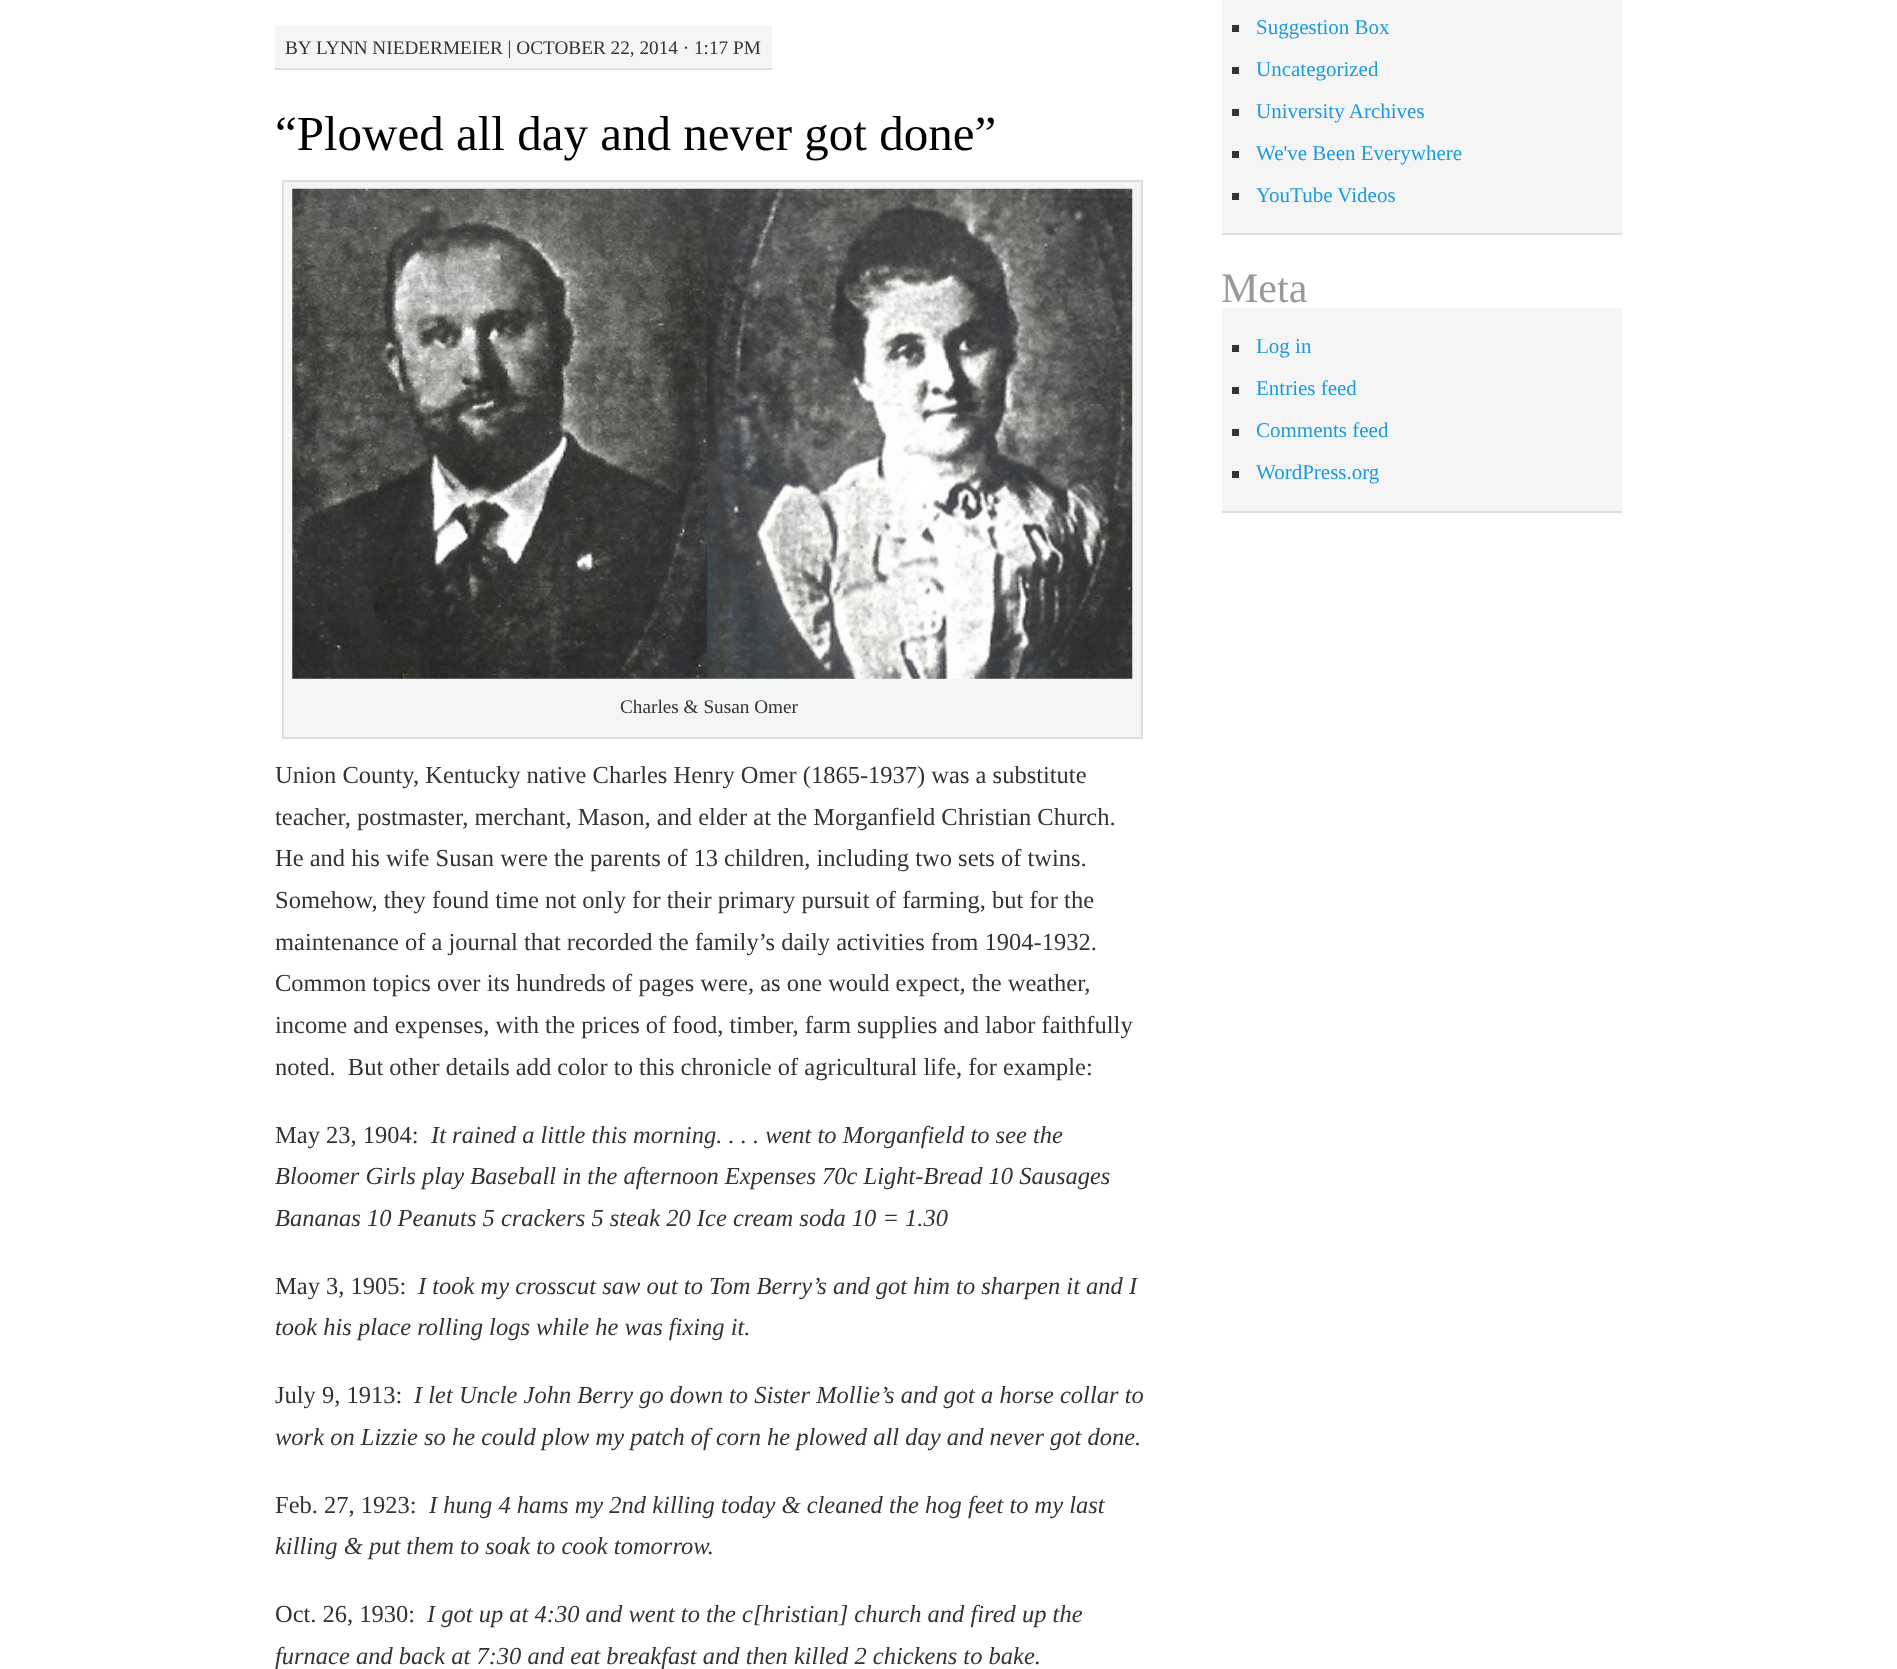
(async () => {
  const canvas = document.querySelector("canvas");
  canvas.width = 1897;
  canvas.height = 1669;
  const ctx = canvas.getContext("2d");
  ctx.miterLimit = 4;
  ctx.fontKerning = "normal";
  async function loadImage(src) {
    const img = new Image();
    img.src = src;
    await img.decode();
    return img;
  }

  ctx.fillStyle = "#ffffff";
  ctx.fillRect(0, 0, 1897, 1669);
  ctx.fillStyle = "#f5f5f5";
  ctx.fillRect(275, 26, 497, 42);
  ctx.fillStyle = "#dddddd";
  ctx.fillRect(275, 68, 497, 2);
  ctx.fillStyle = "#f5f5f5";
  ctx.beginPath();
  ctx.rect(283, 181, 859, 557);
  ctx.fill();
  ctx.strokeStyle = "#dddddd";
  ctx.lineWidth = 2;
  ctx.stroke();
  ctx.drawImage(await loadImage("img/1.png"), 292, 188, 841, 491);
  for (const [x, y, w, h, color] of [
    [1222, 0, 400, 233, "#f5f5f5"],
    [1222, 233, 400, 2, "#dddddd"],
    [1232, 25, 7, 7, "#333333"],
    [1232, 67, 7, 7, "#333333"],
    [1232, 109, 7, 7, "#333333"],
    [1232, 151, 7, 7, "#333333"],
    [1232, 193, 7, 7, "#333333"],
    [1222, 308, 400, 203, "#f5f5f5"],
    [1222, 511, 400, 2, "#dddddd"],
    [1232, 345, 7, 7, "#333333"],
    [1232, 387, 7, 7, "#333333"],
    [1232, 429, 7, 7, "#333333"],
    [1232, 471, 7, 7, "#333333"],
  ]) {
    ctx.fillStyle = color;
    ctx.fillRect(x, y, w, h);
  }
  ctx.font = "19.25px Liberation Serif";
  ctx.fillText("BY", 285, 54);
  ctx.fillText("LYNN NIEDERMEIER | OCTOBER 22, 2014 · 1:17 PM", 316, 54);
  ctx.font = "49px Liberation Serif";
  ctx.fillStyle = "#000000";
  ctx.fillText("“Plowed all day and never got done”", 275, 150);
  ctx.font = "19.25px Liberation Serif";
  ctx.fillStyle = "#333333";
  ctx.fillText("Charles & Susan Omer", 620, 713);
  ctx.font = "24.5px Liberation Serif";
  for (const [text, x, y] of [
    ["Union County, Kentucky native Charles Henry Omer (1865-1937) was a substitute", 275, 783],
    ["teacher, postmaster, merchant, Mason, and elder at the Morganfield Christian Church.", 275, 825],
    ["He and his wife Susan were the parents of 13 children, including two sets of twins.", 275, 866],
    ["Somehow, they found time not only for their primary pursuit of farming, but for the", 275, 908],
    ["maintenance of a journal that recorded the family’s daily activities from 1904-1932.", 275, 950],
    ["Common topics over its hundreds of pages were, as one would expect, the weather,", 275, 991],
    ["income and expenses, with the prices of food, timber, farm supplies and labor faithfully", 275, 1033],
    ["noted.  But other details add color to this chronicle of agricultural life, for example:", 275, 1075],
    ["May 23, 1904:", 275, 1143],
  ]) {
    ctx.fillText(text, x, y);
  }
  ctx.font = "italic 24.5px Liberation Serif";
  for (const [text, x, y] of [
    ["It rained a little this morning. . . . went to Morganfield to see the", 431, 1143],
    ["Bloomer Girls play Baseball in the afternoon Expenses 70c Light-Bread 10 Sausages", 275, 1184],
    ["Bananas 10 Peanuts 5 crackers 5 steak 20 Ice cream soda 10 = 1.30", 275, 1226],
  ]) {
    ctx.fillText(text, x, y);
  }
  ctx.font = "24.5px Liberation Serif";
  ctx.fillText("May 3, 1905:", 275, 1294);
  ctx.font = "italic 24.5px Liberation Serif";
  ctx.fillText("I took my crosscut saw out to Tom Berry’s and got him to sharpen it and I", 418, 1294);
  ctx.fillText("took his place rolling logs while he was fixing it.", 275, 1335);
  ctx.font = "24.5px Liberation Serif";
  ctx.fillText("July 9, 1913:", 275, 1403);
  ctx.font = "italic 24.5px Liberation Serif";
  ctx.fillText("I let Uncle John Berry go down to Sister Mollie’s and got a horse collar to", 414, 1403);
  ctx.fillText("work on Lizzie so he could plow my patch of corn he plowed all day and never got done.", 275, 1445);
  ctx.font = "24.5px Liberation Serif";
  ctx.fillText("Feb. 27, 1923:", 275, 1513);
  ctx.font = "italic 24.5px Liberation Serif";
  ctx.fillText("I hung 4 hams my 2nd killing today & cleaned the hog feet to my last", 429, 1513);
  ctx.fillText("killing & put them to soak to cook tomorrow.", 275, 1554);
  ctx.font = "24.5px Liberation Serif";
  ctx.fillText("Oct. 26, 1930:", 275, 1622);
  ctx.font = "italic 24.5px Liberation Serif";
  ctx.fillText("I got up at 4:30 and went to the c[hristian] church and fired up the", 427, 1622);
  ctx.fillText("furnace and back at 7:30 and eat breakfast and then killed 2 chickens to bake.", 275, 1664);
  ctx.font = "21px Liberation Serif";
  ctx.fillStyle = "#1c9bdc";
  for (const [text, x, y] of [
    ["Suggestion Box", 1256, 34],
    ["Uncategorized", 1256, 76],
    ["University Archives", 1256, 118],
    ["We've Been Everywhere", 1256, 160],
    ["YouTube Videos", 1256, 202],
  ]) {
    ctx.fillText(text, x, y);
  }
  ctx.save();
  ctx.beginPath();
  ctx.rect(1222, 0, 400, 555);
  ctx.clip();
  ctx.font = "42px Liberation Serif";
  ctx.fillStyle = "#999999";
  ctx.fillText("Meta", 1221, 302);
  ctx.restore();
  for (const [text, x, y] of [
    ["Log in", 1256, 353],
    ["Entries feed", 1256, 395],
    ["Comments feed", 1256, 437],
    ["WordPress.org", 1256, 479],
  ]) {
    ctx.fillText(text, x, y);
  }
})();
